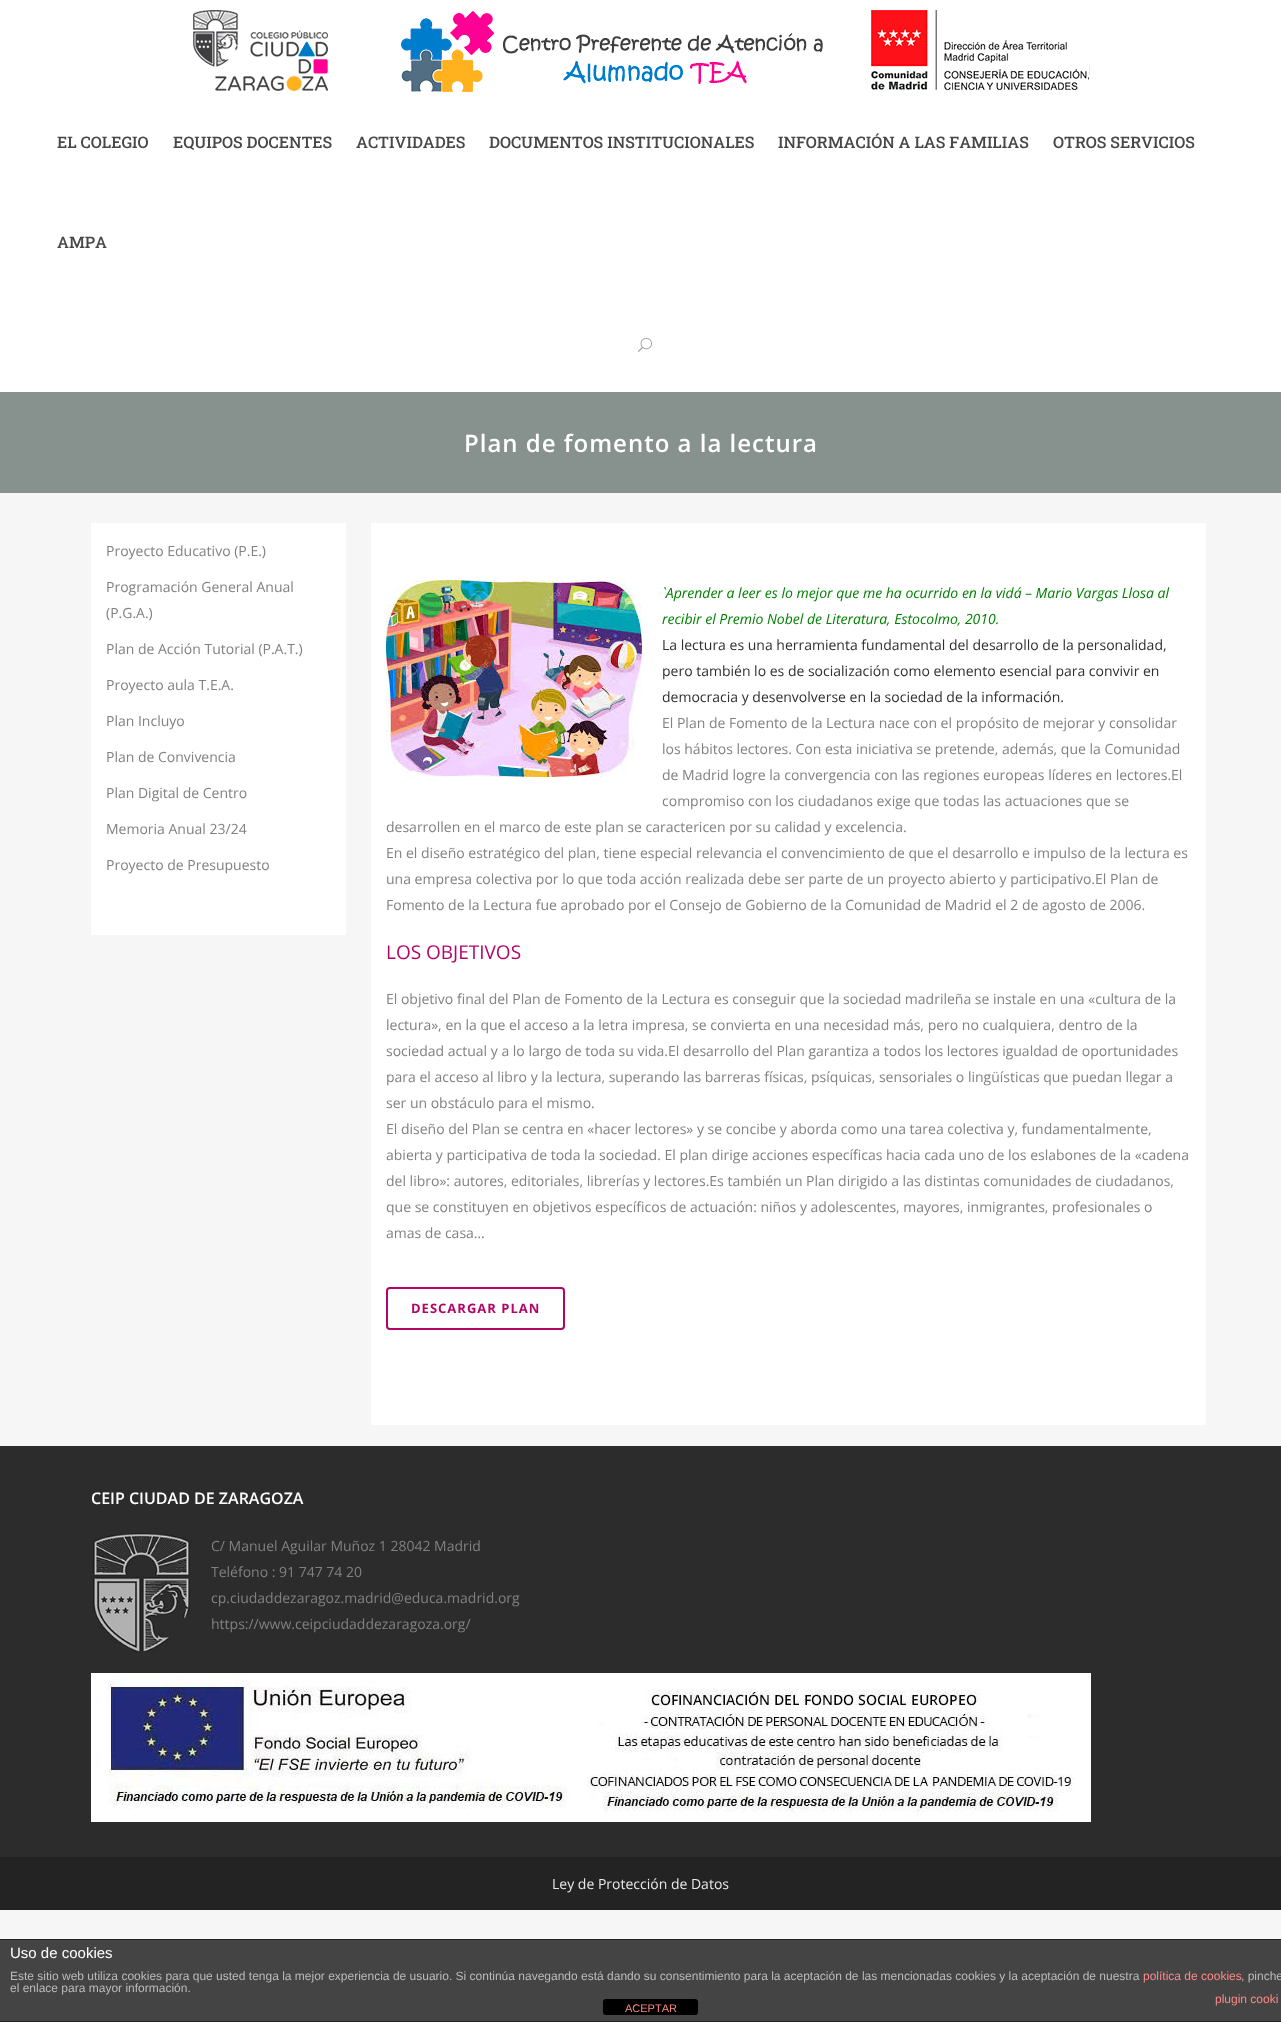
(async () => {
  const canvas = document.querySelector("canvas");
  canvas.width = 1281;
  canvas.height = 2022;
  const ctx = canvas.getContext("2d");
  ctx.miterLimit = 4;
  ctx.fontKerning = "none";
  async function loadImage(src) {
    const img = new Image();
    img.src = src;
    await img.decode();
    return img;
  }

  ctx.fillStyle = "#f6f6f6";
  ctx.fillRect(0, 0, 1281, 2022);
  ctx.fillStyle = "#ffffff";
  ctx.fillRect(0, 0, 1281, 392);
  ctx.drawImage(await loadImage("img/1.png"), 193, 10, 897, 82);
  ctx.drawImage(await loadImage("img/2.png"), 638, 337, 14, 15);
  for (const [x, y, w, h, color] of [
    [0, 392, 1281, 101, "#87918d"],
    [91, 523, 255, 412, "#ffffff"],
    [371, 523, 835, 902, "#ffffff"],
  ]) {
    ctx.fillStyle = color;
    ctx.fillRect(x, y, w, h);
  }
  ctx.drawImage(await loadImage("img/3.png"), 386, 580, 256, 197);
  ctx.beginPath();
  ctx.roundRect(387, 1288, 177, 41, 3);
  ctx.strokeStyle = "#b10567";
  ctx.lineWidth = 2;
  ctx.stroke();
  ctx.fillStyle = "#2c2c2c";
  ctx.fillRect(0, 1446, 1281, 411);
  ctx.drawImage(await loadImage("img/4.png"), 91, 1533, 99, 120);
  ctx.drawImage(await loadImage("img/5.png"), 91, 1673, 1000, 149);
  for (const [x, y, w, h, color] of [
    [0, 1857, 1281, 53, "#232323"],
    [0, 1940, 1281, 81, "#444444"],
    [0, 1939, 1281, 1, "#222222"],
    [0, 2021, 1281, 1, "#222222"],
  ]) {
    ctx.fillStyle = color;
    ctx.fillRect(x, y, w, h);
  }
  ctx.fillStyle = "#000000";
  ctx.beginPath();
  ctx.roundRect(603, 1999, 95, 16, 3);
  ctx.fill();
  ctx.font = "500 16px Roboto Slab";
  ctx.fillStyle = "#474747";
  for (const [text, x, y] of [
    ["EL COLEGIO", 57, 148],
    ["EQUIPOS DOCENTES", 173, 148],
    ["ACTIVIDADES", 356, 148],
    ["DOCUMENTOS INSTITUCIONALES", 489, 148],
    ["INFORMACIÓN A LAS FAMILIAS", 778, 148],
    ["OTROS SERVICIOS", 1053, 148],
    ["AMPA", 57, 248],
  ]) {
    ctx.fillText(text, x, y);
  }
  ctx.letterSpacing = "1px";
  ctx.font = "600 24px Open Sans";
  ctx.fillStyle = "#ffffff";
  ctx.fillText("Plan de fomento a la lectura", 464, 452);
  ctx.letterSpacing = "0px";
  ctx.font = "14px Open Sans";
  ctx.fillStyle = "#818181";
  for (const [text, x, y] of [
    ["Proyecto Educativo (P.E.)", 106, 556],
    ["Programación General Anual", 106, 592],
    ["(P.G.A.)", 106, 618],
    ["Plan de Acción Tutorial (P.A.T.)", 106, 654],
    ["Proyecto aula T.E.A.", 106, 690],
    ["Plan Incluyo", 106, 726],
    ["Plan de Convivencia", 106, 762],
    ["Plan Digital de Centro", 106, 798],
    ["Memoria Anual 23/24", 106, 834],
    ["Proyecto de Presupuesto", 106, 870],
  ]) {
    ctx.fillText(text, x, y);
  }
  ctx.font = "italic 14px Open Sans";
  ctx.fillStyle = "#008000";
  ctx.fillText("`Aprender a leer es lo mejor que me ha ocurrido en la vida´ – Mario Vargas Llosa al", 662, 598);
  ctx.fillText("recibir el Premio Nobel de Literatura, Estocolmo, 2010.", 662, 624);
  ctx.font = "14px Open Sans";
  ctx.fillStyle = "#2f2f2f";
  for (const [text, x, y] of [
    ["La lectura es una herramienta fundamental del desarrollo de la personalidad,", 662, 650],
    ["pero también lo es de socialización como elemento esencial para convivir en", 662, 676],
    ["democracia y desenvolverse en la sociedad de la información.", 662, 702],
  ]) {
    ctx.fillText(text, x, y);
  }
  ctx.fillStyle = "#818181";
  for (const [text, x, y] of [
    ["El Plan de Fomento de la Lectura nace con el propósito de mejorar y consolidar", 662, 728],
    ["los hábitos lectores. Con esta iniciativa se pretende, además, que la Comunidad", 662, 754],
    ["de Madrid logre la convergencia con las regiones europeas líderes en lectores.El", 662, 780],
    ["compromiso con los ciudadanos exige que todas las actuaciones que se", 662, 806],
    ["desarrollen en el marco de este plan se caractericen por su calidad y excelencia.", 386, 832],
    ["En el diseño estratégico del plan, tiene especial relevancia el convencimiento de que el desarrollo e impulso de la lectura es", 386, 858],
    ["una empresa colectiva por lo que toda acción realizada debe ser parte de un proyecto abierto y participativo.El Plan de", 386, 884],
    ["Fomento de la Lectura fue aprobado por el Consejo de Gobierno de la Comunidad de Madrid el 2 de agosto de 2006.", 386, 910],
  ]) {
    ctx.fillText(text, x, y);
  }
  ctx.font = "19px Open Sans";
  ctx.fillStyle = "#b10567";
  ctx.fillText("LOS OBJETIVOS", 386, 959);
  ctx.font = "14px Open Sans";
  ctx.fillStyle = "#818181";
  for (const [text, x, y] of [
    ["El objetivo final del Plan de Fomento de la Lectura es conseguir que la sociedad madrileña se instale en una «cultura de la", 386, 1004],
    ["lectura», en la que el acceso a la letra impresa, se convierta en una necesidad más, pero no cualquiera, dentro de la", 386, 1030],
    ["sociedad actual y a lo largo de toda su vida.El desarrollo del Plan garantiza a todos los lectores igualdad de oportunidades", 386, 1056],
    ["para el acceso al libro y la lectura, superando las barreras físicas, psíquicas, sensoriales o lingüísticas que puedan llegar a", 386, 1082],
    ["ser un obstáculo para el mismo.", 386, 1108],
    ["El diseño del Plan se centra en «hacer lectores» y se concibe y aborda como una tarea colectiva y, fundamentalmente,", 386, 1134],
    ["abierta y participativa de toda la sociedad. El plan dirige acciones específicas hacia cada uno de los eslabones de la «cadena", 386, 1160],
    ["del libro»: autores, editoriales, librerías y lectores.Es también un Plan dirigido a las distintas comunidades de ciudadanos,", 386, 1186],
    ["que se constituyen en objetivos específicos de actuación: niños y adolescentes, mayores, inmigrantes, profesionales o", 386, 1212],
    ["amas de casa…", 386, 1238],
  ]) {
    ctx.fillText(text, x, y);
  }
  ctx.letterSpacing = "1px";
  ctx.font = "bold 13px Open Sans";
  ctx.fillStyle = "#b10567";
  ctx.fillText("DESCARGAR PLAN", 411, 1313);
  ctx.letterSpacing = "0px";
  ctx.font = "600 16px Open Sans";
  ctx.fillStyle = "#ffffff";
  ctx.fillText("CEIP CIUDAD DE ZARAGOZA", 91, 1504);
  ctx.font = "14px Open Sans";
  ctx.fillStyle = "#818181";
  for (const [text, x, y] of [
    ["C/ Manuel Aguilar Muñoz 1 28042 Madrid", 211, 1551],
    ["Teléfono : 91 747 74 20", 211, 1577],
    ["cp.ciudaddezaragoz.madrid@educa.madrid.org", 211, 1603],
    ["https://www.ceipciudaddezaragoza.org/", 211, 1629],
  ]) {
    ctx.fillText(text, x, y);
  }
  ctx.fillStyle = "#e8e8e8";
  ctx.fillText("Ley de Protección de Datos", 552, 1889);
  ctx.font = "15px Liberation Sans";
  ctx.fillStyle = "#ffffff";
  ctx.fillText("Uso de cookies", 10, 1958);
  ctx.font = "12px Liberation Sans";
  ctx.fillStyle = "#bbbbbb";
  ctx.fillText("Este sitio web utiliza cookies para que usted tenga la mejor experiencia de usuario. Si continúa navegando está dando su consentimiento para la aceptación de las mencionadas cookies y la aceptación de nuestra", 10, 1980);
  ctx.fillStyle = "#ff8888";
  ctx.fillText("política de cookies", 1143, 1980);
  ctx.fillStyle = "#bbbbbb";
  ctx.fillText(", pinche", 1241, 1980);
  ctx.fillText("el enlace para mayor información.", 10, 1992);
  ctx.fillStyle = "#ff8888";
  ctx.fillText("plugin cooki", 1215, 2003);
  ctx.font = "11px Liberation Sans";
  ctx.fillText("ACEPTAR", 625, 2012);
})();
